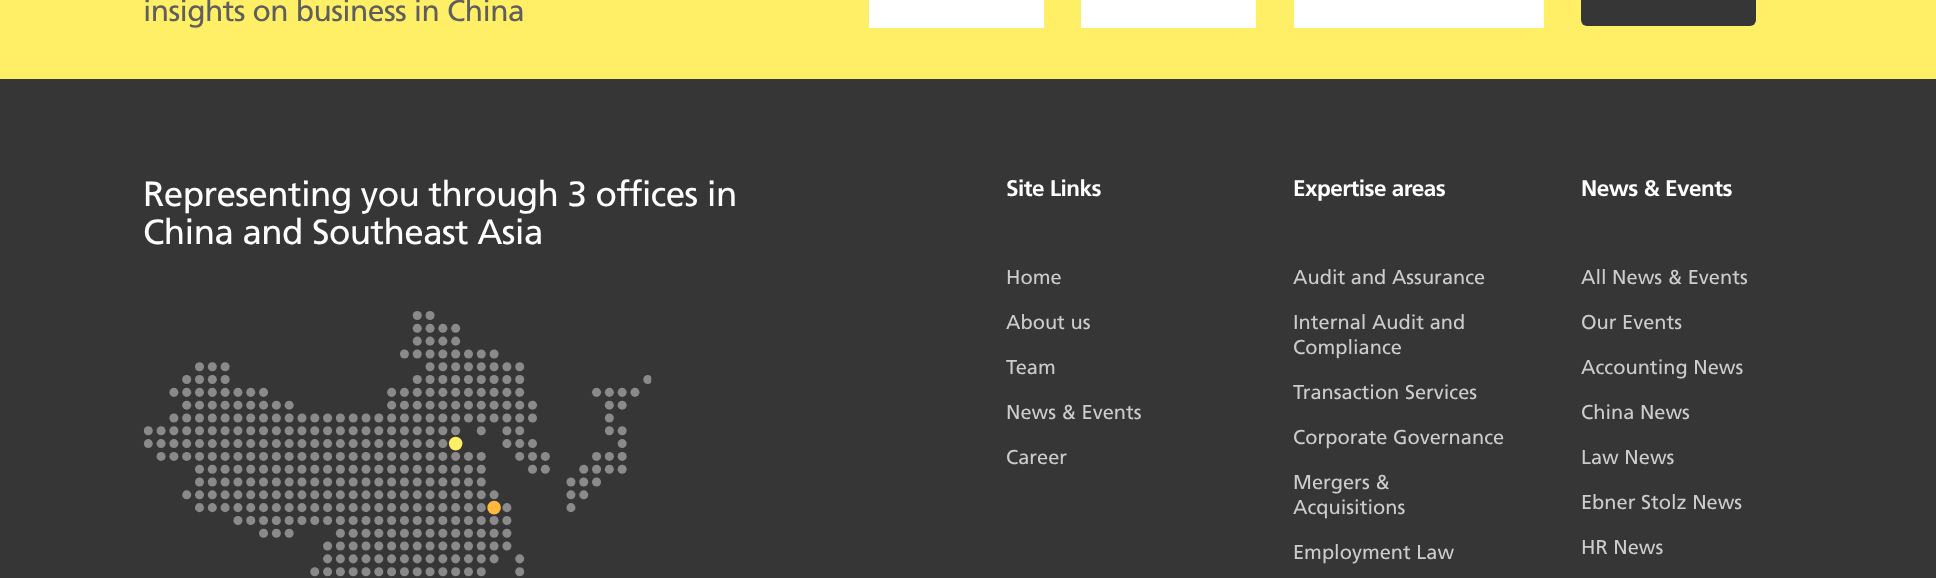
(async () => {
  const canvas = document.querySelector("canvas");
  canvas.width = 1936;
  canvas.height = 578;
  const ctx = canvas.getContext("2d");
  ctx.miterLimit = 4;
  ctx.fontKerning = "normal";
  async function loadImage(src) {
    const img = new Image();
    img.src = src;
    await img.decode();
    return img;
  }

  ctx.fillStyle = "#ffef66";
  ctx.fillRect(0, 0, 1936, 578);
  for (const [x, y, w, h, color] of [
    [869, 0, 175, 28, "#ffffff"],
    [1081, 0, 175, 28, "#ffffff"],
    [1294, 0, 250, 28, "#ffffff"],
  ]) {
    ctx.fillStyle = color;
    ctx.fillRect(x, y, w, h);
  }
  ctx.fillStyle = "#363636";
  ctx.beginPath();
  ctx.roundRect(1581, -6, 175, 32, 6);
  ctx.fill();
  ctx.fillRect(0, 79, 1936, 499);
  ctx.drawImage(await loadImage("img/1.png"), 143, 311, 509, 266);
  ctx.letterSpacing = "-0.6px";
  ctx.font = "30px 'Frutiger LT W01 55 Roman'";
  ctx.fillStyle = "#5f5e5e";
  ctx.fillText("insights on business in China", 143, 21);
  ctx.font = "35px 'Frutiger LT W01 55 Roman'";
  ctx.fillStyle = "#ffffff";
  ctx.fillText("Representing you through 3 offices in", 143, 206);
  ctx.fillText("China and Southeast Asia", 143, 244);
  ctx.letterSpacing = "-0.5px";
  ctx.font = "bold 22.5px 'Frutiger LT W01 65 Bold'";
  ctx.fillText("Site Links", 1006, 196);
  ctx.letterSpacing = "0px";
  ctx.font = "20px 'Frutiger LT W01 55 Roman'";
  ctx.fillStyle = "#cccccc";
  for (const [text, x, y] of [
    ["Home", 1006, 284],
    ["About us", 1006, 329],
    ["Team", 1006, 374],
    ["News & Events", 1006, 419],
    ["Career", 1006, 464],
  ]) {
    ctx.fillText(text, x, y);
  }
  ctx.letterSpacing = "-0.5px";
  ctx.font = "bold 22.5px 'Frutiger LT W01 65 Bold'";
  ctx.fillStyle = "#ffffff";
  ctx.fillText("Expertise areas", 1293, 196);
  ctx.letterSpacing = "0px";
  ctx.font = "20px 'Frutiger LT W01 55 Roman'";
  ctx.fillStyle = "#cccccc";
  for (const [text, x, y] of [
    ["Audit and Assurance", 1293, 284],
    ["Internal Audit and", 1293, 329],
    ["Compliance", 1293, 354],
    ["Transaction Services", 1293, 399],
    ["Corporate Governance", 1293, 444],
    ["Mergers &", 1293, 489],
    ["Acquisitions", 1293, 514],
    ["Employment Law", 1293, 559],
  ]) {
    ctx.fillText(text, x, y);
  }
  ctx.letterSpacing = "-0.5px";
  ctx.font = "bold 22.5px 'Frutiger LT W01 65 Bold'";
  ctx.fillStyle = "#ffffff";
  ctx.fillText("News & Events", 1581, 196);
  ctx.letterSpacing = "0px";
  ctx.font = "20px 'Frutiger LT W01 55 Roman'";
  ctx.fillStyle = "#cccccc";
  for (const [text, x, y] of [
    ["All News & Events", 1581, 284],
    ["Our Events", 1581, 329],
    ["Accounting News", 1581, 374],
    ["China News", 1581, 419],
    ["Law News", 1581, 464],
    ["Ebner Stolz News", 1581, 509],
    ["HR News", 1581, 554],
  ]) {
    ctx.fillText(text, x, y);
  }
})();
